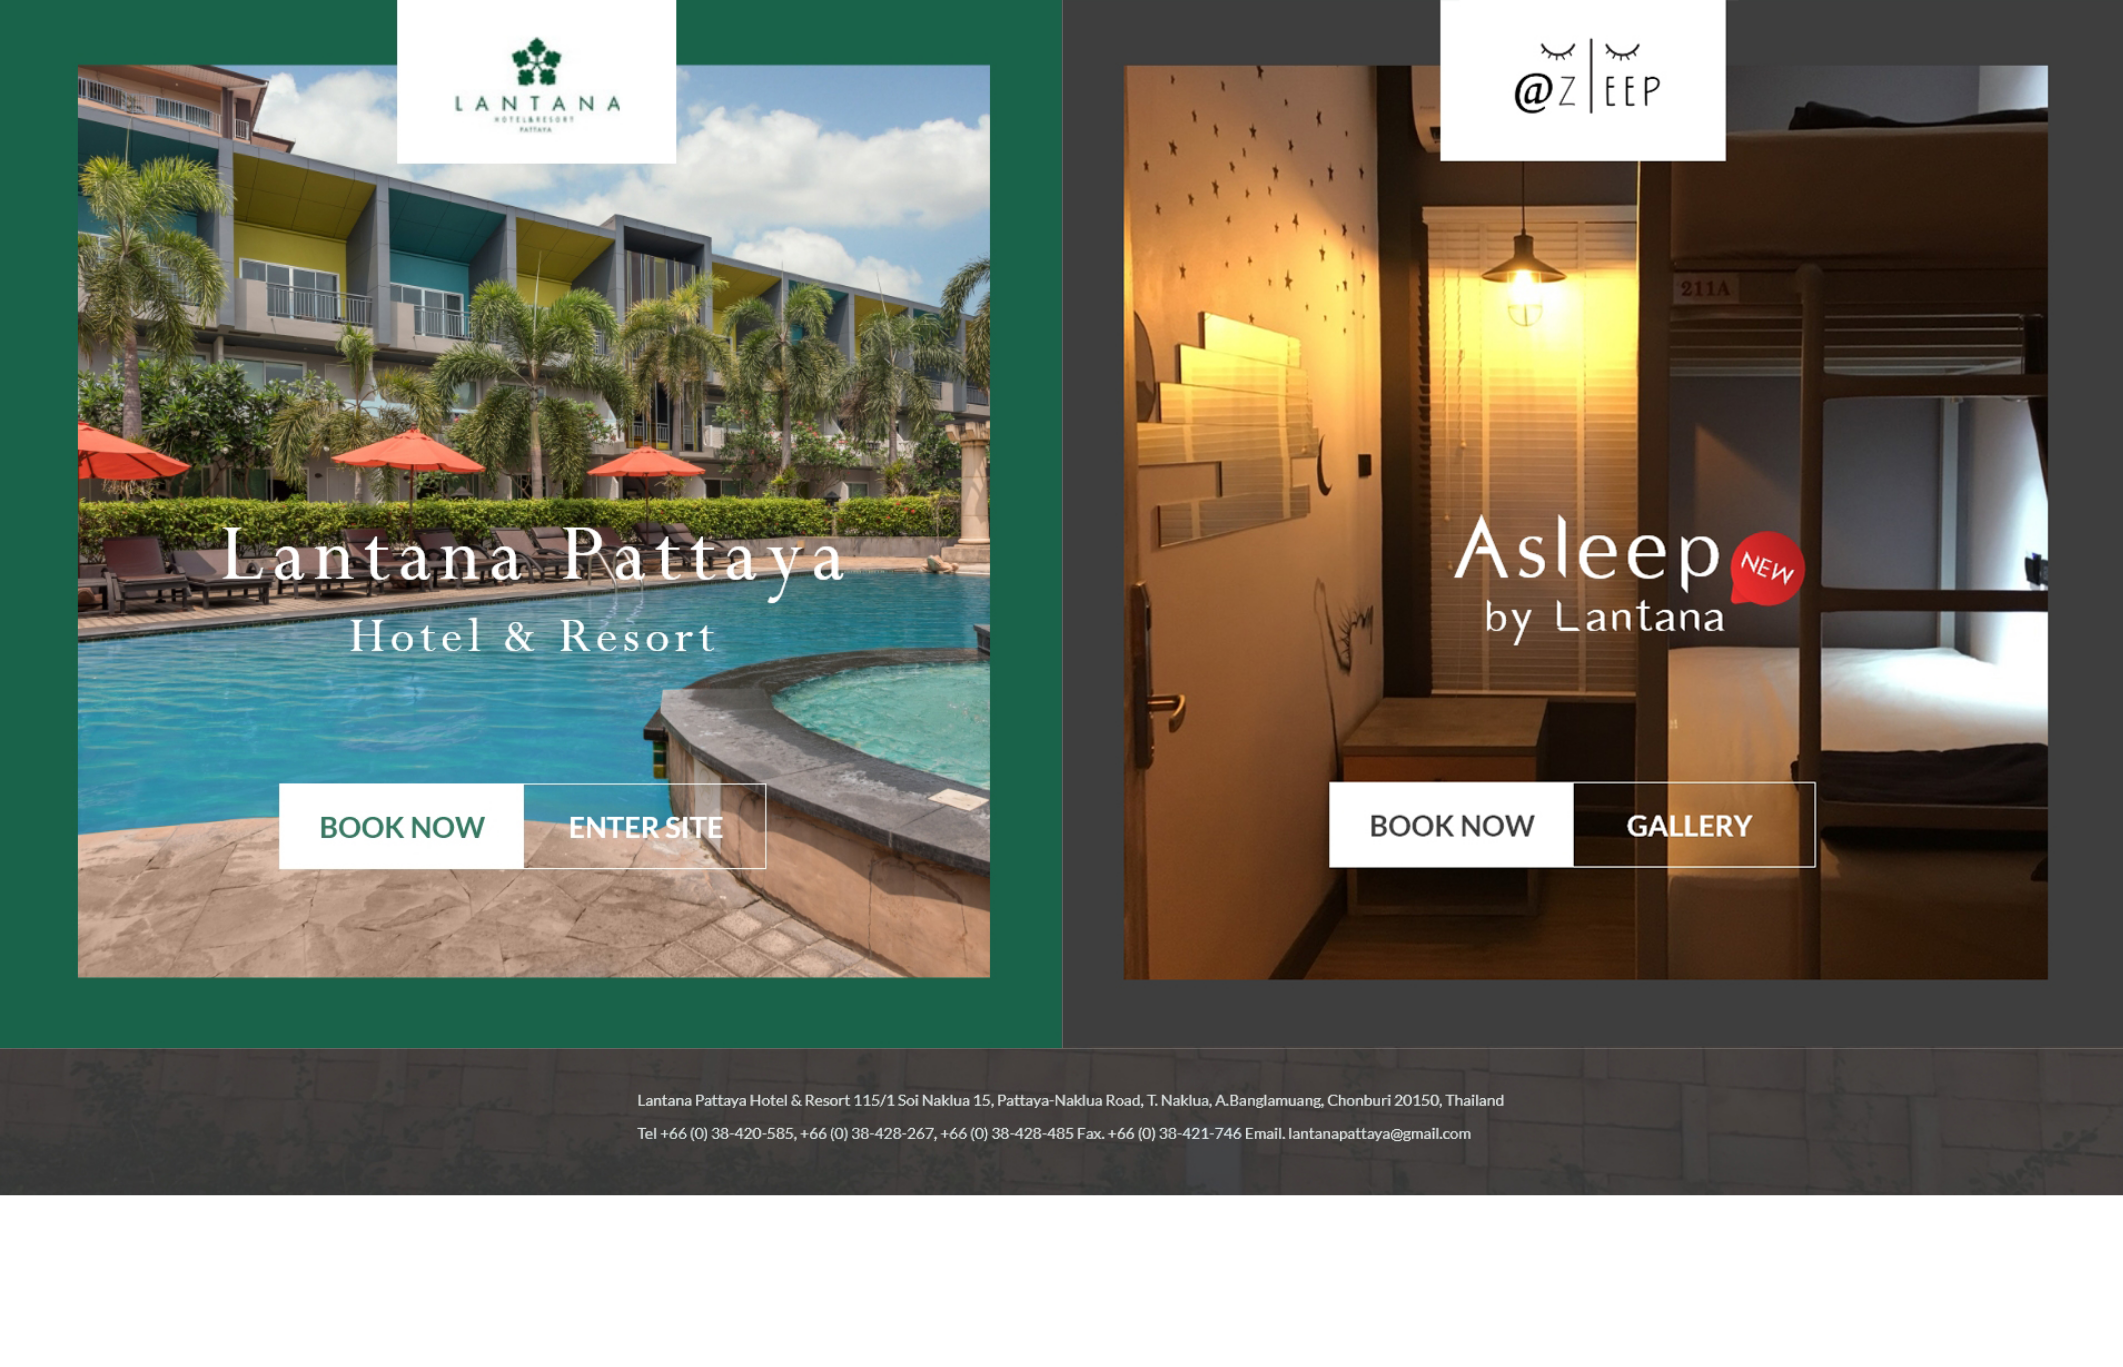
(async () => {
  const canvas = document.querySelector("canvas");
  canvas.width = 2123;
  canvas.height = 1367;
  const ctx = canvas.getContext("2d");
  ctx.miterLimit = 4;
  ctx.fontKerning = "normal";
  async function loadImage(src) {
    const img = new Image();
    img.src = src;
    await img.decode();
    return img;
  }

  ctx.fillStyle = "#ffffff";
  ctx.fillRect(0, 0, 2123, 1367);
  ctx.drawImage(await loadImage("img/1.png"), 0, 0, 1063, 1049);
  ctx.drawImage(await loadImage("img/2.png"), 1062, 0, 1061, 1049);
  ctx.drawImage(await loadImage("img/3.png"), 0, 1048, 2123, 148);
})();
